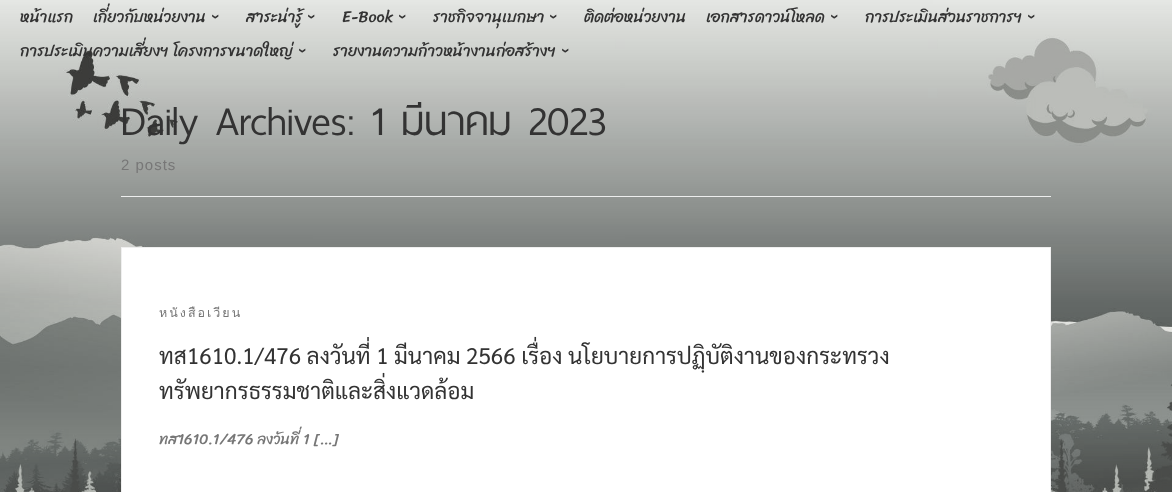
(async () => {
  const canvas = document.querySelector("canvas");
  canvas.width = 1172;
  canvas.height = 492;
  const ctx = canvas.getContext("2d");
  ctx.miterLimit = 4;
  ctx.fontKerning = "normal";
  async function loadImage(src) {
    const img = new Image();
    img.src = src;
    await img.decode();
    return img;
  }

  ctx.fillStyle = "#ffffff";
  ctx.fillRect(0, 0, 1172, 492);
  ctx.drawImage(await loadImage("img/1.png"), 0, 0, 1172, 492);
  ctx.fillStyle = "#edeeee";
  ctx.fillRect(121, 196, 930, 1);
  ctx.fillStyle = "#ffffff";
  ctx.fillRect(122, 248, 928, 244);
  ctx.strokeStyle = "#efefef";
  ctx.strokeRect(121.5, 247.5, 929, 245);
  ctx.font = "16px Sriracha";
  ctx.fillStyle = "#333333";
  ctx.fillText("หน้าแรก", 20, 22);
  ctx.fillText("เกี่ยวกับหน่วยงาน", 93, 22);
  ctx.font = "bold 16px Liberation Sans";
  ctx.save();
  ctx.translate(211, 14);
  ctx.rotate(90 * Math.PI / 180);
  ctx.fillText("›", 0, 0);
  ctx.restore();
  ctx.font = "16px Sriracha";
  ctx.fillText("สาระน่ารู้", 246, 22);
  ctx.font = "bold 16px Liberation Sans";
  ctx.save();
  ctx.translate(307, 14);
  ctx.rotate(90 * Math.PI / 180);
  ctx.fillText("›", 0, 0);
  ctx.restore();
  ctx.font = "16px Sriracha";
  ctx.fillText("E-Book", 342, 22);
  ctx.font = "bold 16px Liberation Sans";
  ctx.save();
  ctx.translate(398, 14);
  ctx.rotate(90 * Math.PI / 180);
  ctx.fillText("›", 0, 0);
  ctx.restore();
  ctx.font = "16px Sriracha";
  ctx.fillText("ราชกิจจานุเบกษา", 433, 22);
  ctx.font = "bold 16px Liberation Sans";
  ctx.save();
  ctx.translate(549, 14);
  ctx.rotate(90 * Math.PI / 180);
  ctx.fillText("›", 0, 0);
  ctx.restore();
  ctx.save();
  ctx.beginPath();
  ctx.rect(579, 0, 112, 34);
  ctx.clip();
  ctx.font = "16px Sriracha";
  ctx.fillText("ติดต่อหน่วยงาน", 584, 22);
  ctx.restore();
  ctx.font = "16px Sriracha";
  ctx.fillText("เอกสารดาวน์โหลด", 706, 22);
  ctx.font = "bold 16px Liberation Sans";
  ctx.save();
  ctx.translate(830, 14);
  ctx.rotate(90 * Math.PI / 180);
  ctx.fillText("›", 0, 0);
  ctx.restore();
  ctx.font = "16px Sriracha";
  ctx.fillText("การประเมินส่วนราชการฯ", 865, 22);
  ctx.font = "bold 16px Liberation Sans";
  ctx.save();
  ctx.translate(1027, 14);
  ctx.rotate(90 * Math.PI / 180);
  ctx.fillText("›", 0, 0);
  ctx.restore();
  ctx.font = "16px Sriracha";
  ctx.fillText("การประเมินความเสี่ยงฯ โครงการขนาดใหญ่", 20, 56);
  ctx.font = "bold 16px Liberation Sans";
  ctx.save();
  ctx.translate(298, 48);
  ctx.rotate(90 * Math.PI / 180);
  ctx.fillText("›", 0, 0);
  ctx.restore();
  ctx.font = "16px Sriracha";
  ctx.fillText("รายงานความก้าวหน้างานก่อสร้างฯ", 333, 56);
  ctx.font = "bold 16px Liberation Sans";
  ctx.save();
  ctx.translate(561, 48);
  ctx.rotate(90 * Math.PI / 180);
  ctx.fillText("›", 0, 0);
  ctx.restore();
  ctx.font = "37.4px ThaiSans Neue";
  ctx.fillText("Daily Archives: 1 มีนาคม 2023", 121, 135);
  ctx.letterSpacing = "1px";
  ctx.font = "15px Liberation Sans";
  ctx.fillStyle = "#777777";
  ctx.fillText("2 posts", 121, 170);
  ctx.letterSpacing = "2px";
  ctx.font = "12.5px Loma";
  ctx.fillText("หนังสือเวียน", 159, 317);
  ctx.letterSpacing = "0px";
  ctx.font = "22.55px Sarabun";
  ctx.fillStyle = "#333333";
  ctx.fillText("ทส1610.1/476 ลงวันที่ 1 มีนาคม 2566 เรื่อง นโยบายการปฏฺิบัติงานของกระทรวง", 159, 364);
  ctx.fillText("ทรัพยากรธรรมชาติและสิ่งแวดล้อม", 159, 399);
  ctx.font = "15px Sriracha";
  ctx.fillStyle = "#777777";
  ctx.fillText("ทส1610.1/476 ลงวันที่ 1 […]", 159, 444);
})();
